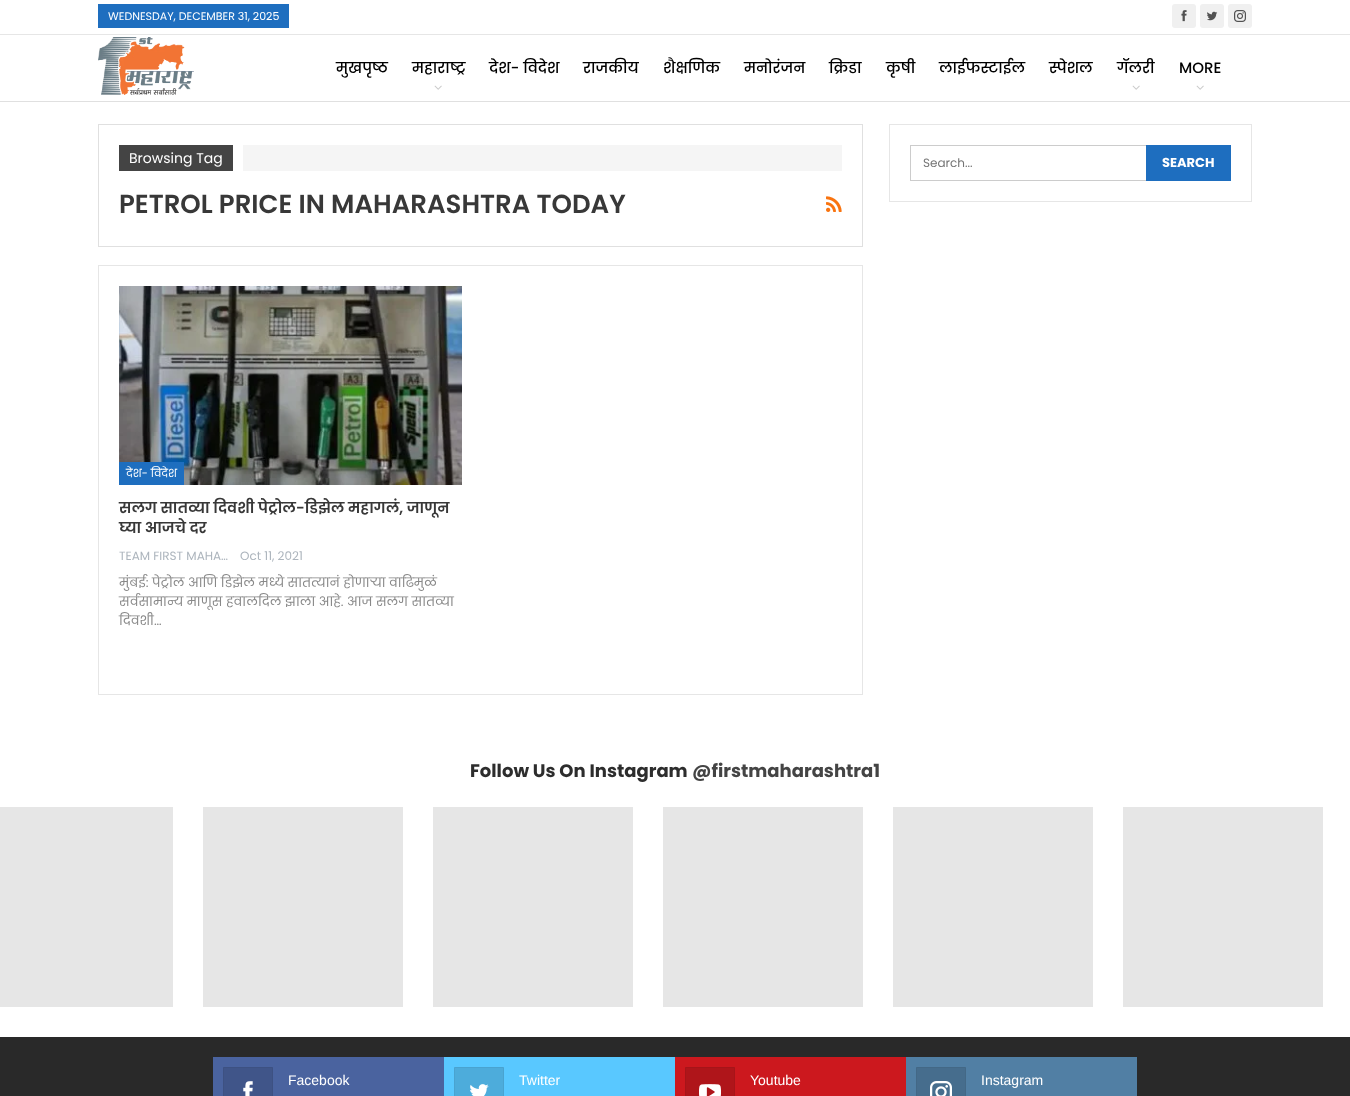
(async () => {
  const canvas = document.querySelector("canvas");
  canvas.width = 1350;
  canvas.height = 1096;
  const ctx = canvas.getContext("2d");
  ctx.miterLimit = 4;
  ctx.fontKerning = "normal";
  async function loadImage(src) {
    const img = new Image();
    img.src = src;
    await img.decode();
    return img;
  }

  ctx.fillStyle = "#ffffff";
  ctx.fillRect(0, 0, 1350, 1096);
  for (const [x, y, w, h, color] of [
    [0, 101, 1350, 1, "#e0e0e0"],
    [0, 34, 1350, 1, "#e6e6e6"],
    [98, 4, 191, 24, "#1e6ebf"],
  ]) {
    ctx.fillStyle = color;
    ctx.fillRect(x, y, w, h);
  }
  ctx.fillStyle = "#f0f0f0";
  ctx.beginPath();
  ctx.roundRect(1172, 4, 24, 24, 3);
  ctx.fill();
  ctx.drawImage(await loadImage("img/1.png"), 1181, 10, 6, 12);
  ctx.beginPath();
  ctx.roundRect(1200, 4, 24, 24, 3);
  ctx.fill();
  ctx.drawImage(await loadImage("img/2.png"), 1207, 11, 11, 10);
  ctx.beginPath();
  ctx.roundRect(1228, 4, 24, 24, 3);
  ctx.fill();
  ctx.drawImage(await loadImage("img/3.png"), 1234, 10, 12, 12);
  ctx.drawImage(await loadImage("img/4.png"), 98, 37, 96, 58);
  ctx.drawImage(await loadImage("img/5.png"), 434, 85, 8, 5);
  ctx.drawImage(await loadImage("img/5.png"), 1132, 85, 8, 5);
  ctx.drawImage(await loadImage("img/5.png"), 1196, 85, 8, 5);
  ctx.strokeStyle = "#e0e0e0";
  ctx.strokeRect(98.5, 124.5, 764, 122);
  ctx.fillStyle = "#444444";
  ctx.fillRect(119, 145, 114, 26);
  ctx.fillStyle = "#f5f5f5";
  ctx.fillRect(243, 145, 599, 26);
  ctx.drawImage(await loadImage("img/6.png"), 826, 196, 16, 16);
  ctx.strokeStyle = "#e6e6e6";
  ctx.strokeRect(98.5, 265.5, 764, 429);
  ctx.drawImage(await loadImage("img/7.png"), 119, 286, 343, 199);
  ctx.fillStyle = "#1e6ebf";
  ctx.fillRect(119, 462, 65, 23);
  ctx.strokeRect(889.5, 124.5, 362, 77);
  ctx.strokeStyle = "#cccccc";
  ctx.strokeRect(910.5, 145.5, 320, 35);
  for (const [x, y, w, h, color] of [
    [1146, 145, 85, 36, "#1e6ebf"],
    [0, 807, 173, 200, "#e6e6e6"],
    [203, 807, 200, 200, "#e6e6e6"],
    [433, 807, 200, 200, "#e6e6e6"],
    [663, 807, 200, 200, "#e6e6e6"],
    [893, 807, 200, 200, "#e6e6e6"],
    [1123, 807, 200, 200, "#e6e6e6"],
    [0, 1037, 1350, 59, "#292929"],
    [213, 1057, 231, 39, "#4a639f"],
  ]) {
    ctx.fillStyle = color;
    ctx.fillRect(x, y, w, h);
  }
  ctx.fillStyle = "#405589";
  ctx.beginPath();
  ctx.rect(223.5, 1067.5, 49, 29);
  ctx.fill();
  ctx.strokeStyle = "#3d5182";
  ctx.stroke();
  ctx.drawImage(await loadImage("img/8.png"), 243, 1081, 10, 15);
  ctx.fillStyle = "#59c8ff";
  ctx.fillRect(444, 1057, 231, 39);
  ctx.fillStyle = "#4dacdb";
  ctx.beginPath();
  ctx.rect(454.5, 1067.5, 49, 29);
  ctx.fill();
  ctx.strokeStyle = "#49a3d0";
  ctx.stroke();
  ctx.drawImage(await loadImage("img/9.png"), 470, 1084, 19, 12);
  ctx.fillStyle = "#cc181e";
  ctx.fillRect(675, 1057, 231, 39);
  ctx.fillStyle = "#af151a";
  ctx.beginPath();
  ctx.rect(685.5, 1067.5, 49, 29);
  ctx.fill();
  ctx.strokeStyle = "#a61419";
  ctx.stroke();
  ctx.drawImage(await loadImage("img/10.png"), 699, 1084, 22, 12);
  ctx.fillStyle = "#517fa4";
  ctx.fillRect(906, 1057, 231, 39);
  ctx.fillStyle = "#466d8d";
  ctx.beginPath();
  ctx.rect(916.5, 1067.5, 49, 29);
  ctx.fill();
  ctx.strokeStyle = "#436886";
  ctx.stroke();
  ctx.drawImage(await loadImage("img/11.png"), 930, 1081, 22, 15);
  ctx.font = "11px Poppins";
  ctx.fillStyle = "#ffffff";
  ctx.fillText("WEDNESDAY, DECEMBER 31, 2025", 108, 20);
  ctx.font = "500 15px Poppins";
  ctx.fillStyle = "#000000";
  for (const [text, x, y] of [
    ["मुखपृष्ठ", 336, 73],
    ["महाराष्ट्र", 412, 73],
    ["देश- विदेश", 489, 73],
    ["राजकीय", 583, 73],
    ["शैक्षणिक", 663, 73],
    ["मनोरंजन", 744, 73],
    ["क्रिडा", 829, 73],
    ["कृषी", 886, 73],
    ["लाईफस्टाईल", 939, 73],
    ["स्पेशल", 1049, 73],
    ["गॅलरी", 1117, 73],
    ["MORE", 1179, 73],
  ]) {
    ctx.fillText(text, x, y);
  }
  ctx.font = "14px Poppins";
  ctx.fillStyle = "#ffffff";
  ctx.fillText("Browsing Tag", 129, 163);
  ctx.font = "600 26px Poppins";
  ctx.fillStyle = "#383838";
  ctx.fillText("PETROL PRICE IN MAHARASHTRA TODAY", 119, 213);
  ctx.font = "11px Poppins";
  ctx.fillStyle = "#ffffff";
  ctx.fillText("देश- विदेश", 126, 477);
  ctx.font = "600 15px Poppins";
  ctx.fillStyle = "#383838";
  ctx.fillText("सलग सातव्या दिवशी पेट्रोल-डिझेल महागलं, जाणून", 119, 513);
  ctx.fillText("घ्या आजचे दर", 119, 533);
  ctx.font = "12px Poppins";
  ctx.fillStyle = "#adb5bd";
  ctx.fillText("TEAM FIRST MAHA…", 119, 560);
  ctx.fillText("Oct 11, 2021", 240, 560);
  ctx.font = "13px Poppins";
  ctx.fillStyle = "#888888";
  for (const [text, x, y] of [
    ["मुंबई: पेट्रोल आणि डिझेल मध्ये सातत्यानं होणाऱ्या वाढिमुळं", 119, 587],
    ["सर्वसामान्य माणूस हवालदिल झाला आहे. आज सलग सातव्या", 119, 606],
    ["दिवशी…", 119, 625],
  ]) {
    ctx.fillText(text, x, y);
  }
  ctx.font = "12px Poppins";
  ctx.fillStyle = "#757575";
  ctx.fillText("Search...", 923, 167);
  ctx.font = "bold 13px Poppins";
  ctx.fillStyle = "#ffffff";
  ctx.fillText("SEARCH", 1162, 167);
  ctx.font = "bold 18px Poppins";
  ctx.fillStyle = "#2d2d2d";
  ctx.fillText("Follow Us On Instagram", 470, 777);
  ctx.fillStyle = "#444444";
  ctx.fillText("@firstmaharashtra1", 692, 777);
  ctx.font = "14px Liberation Sans";
  ctx.fillStyle = "#ffffff";
  for (const [text, x, y] of [
    ["Facebook", 288, 1085],
    ["Twitter", 519, 1085],
    ["Youtube", 750, 1085],
    ["Instagram", 981, 1085],
  ]) {
    ctx.fillText(text, x, y);
  }
})();
